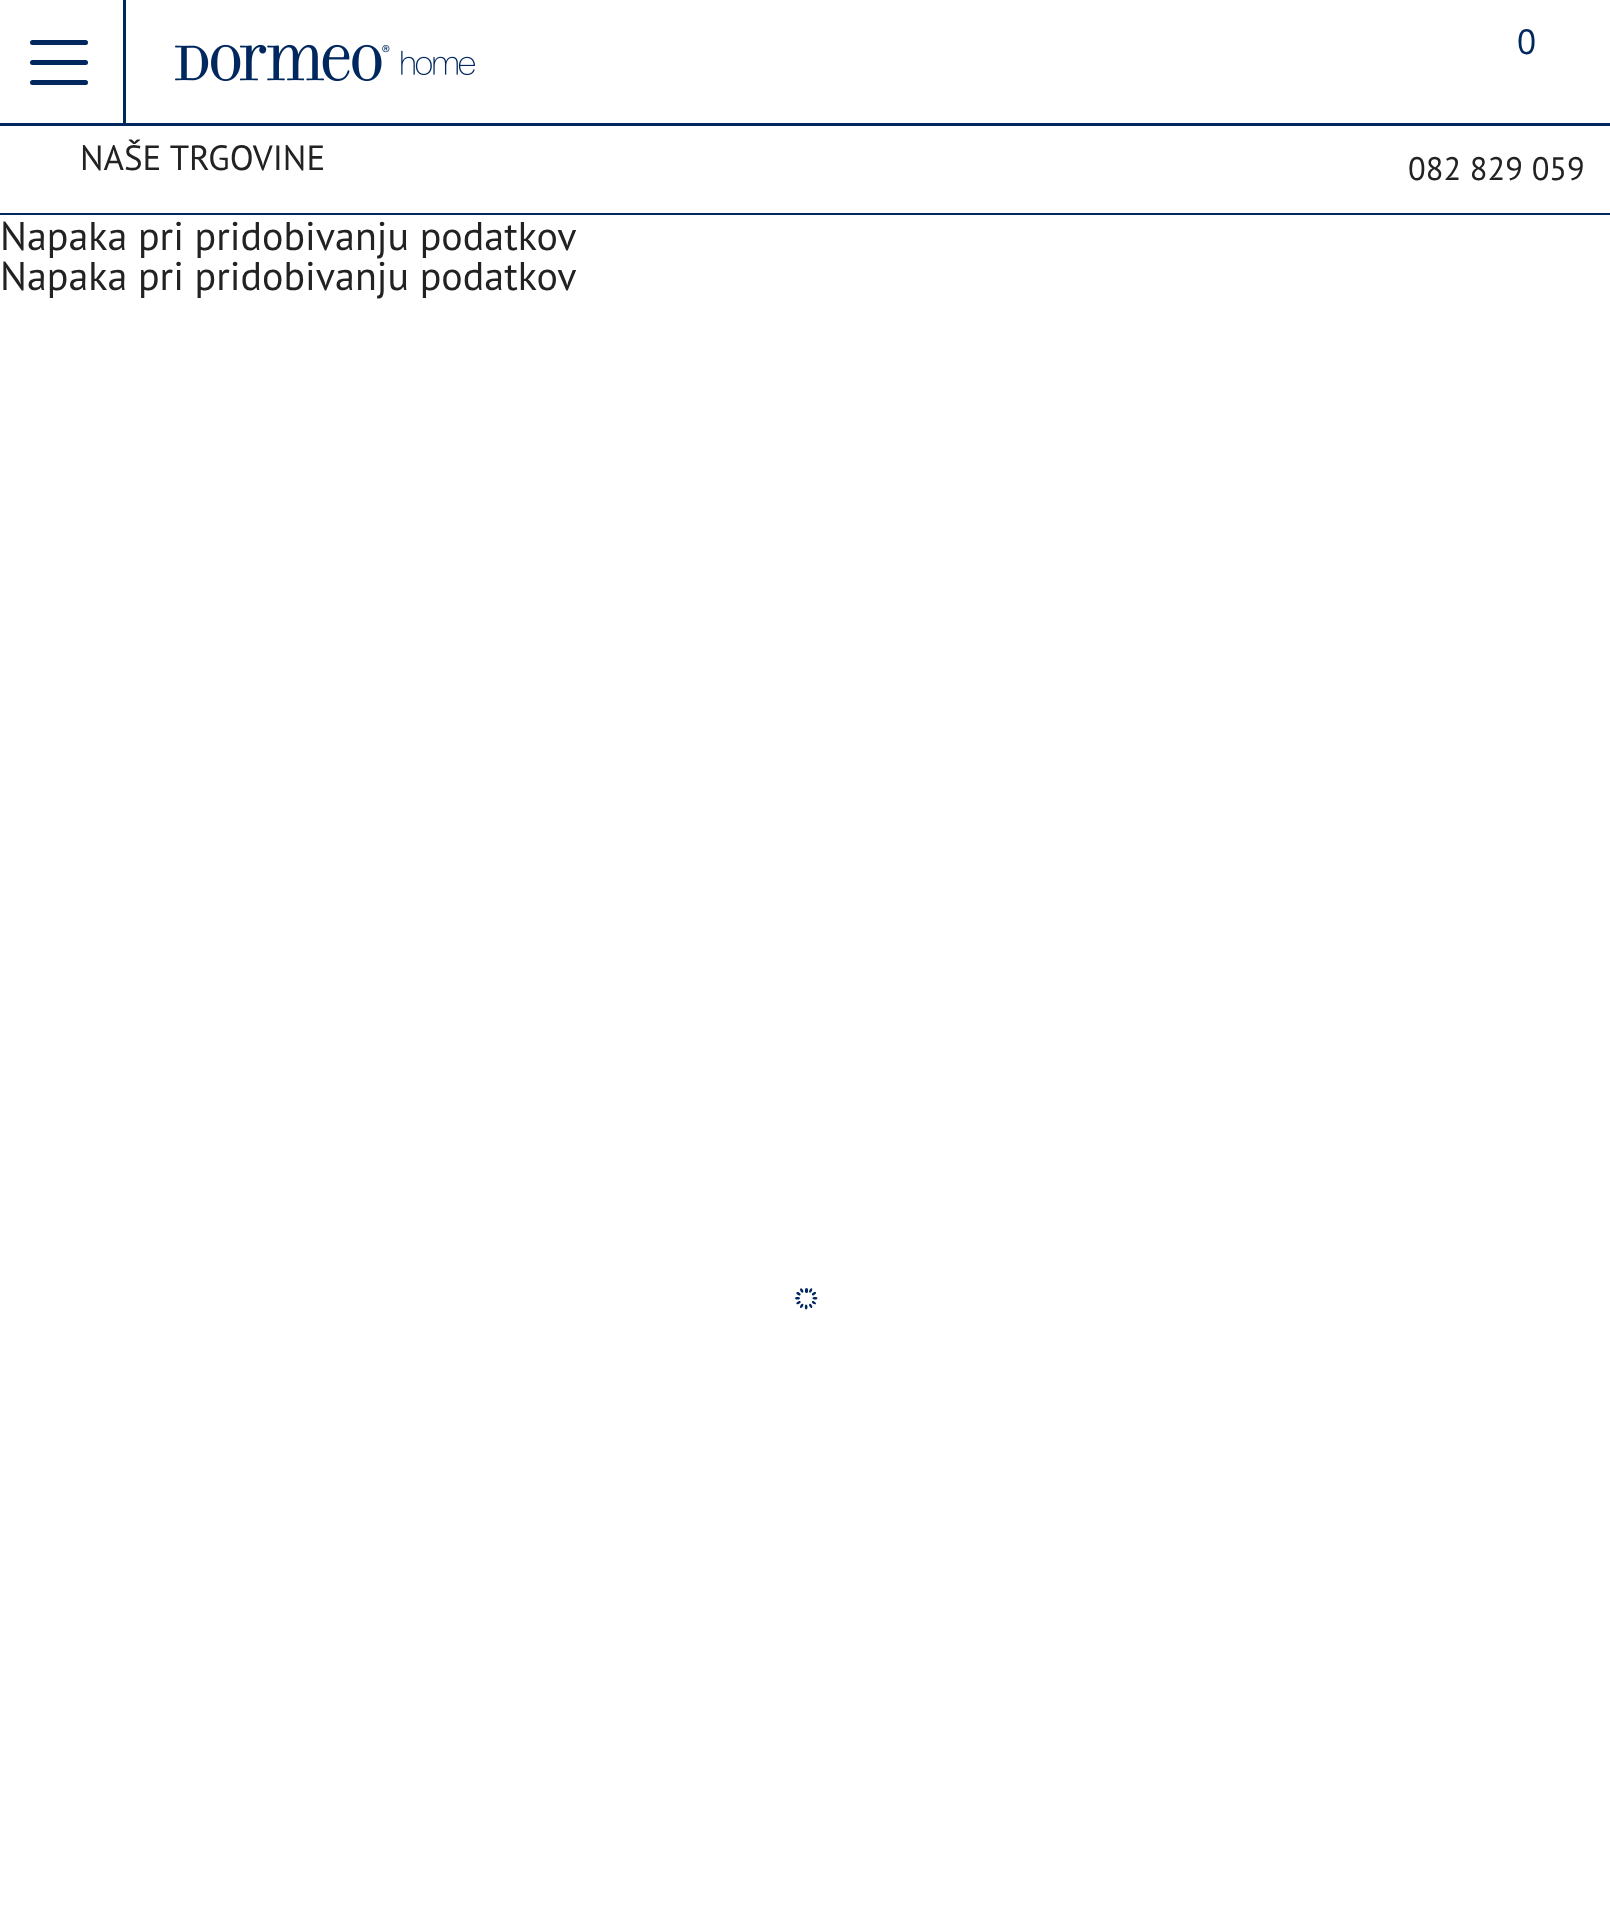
(async () => {
  const canvas = document.querySelector("canvas");
  canvas.width = 1610;
  canvas.height = 1920;
  const ctx = canvas.getContext("2d");
  ctx.miterLimit = 4;
  ctx.fontKerning = "normal";
  async function loadImage(src) {
    const img = new Image();
    img.src = src;
    await img.decode();
    return img;
  }
  let path;

  ctx.fillStyle = "#ffffff";
  ctx.fillRect(0, 0, 1610, 1920);
  ctx.fillStyle = "#00285e";
  ctx.fillRect(0, 123, 1610, 3);
  ctx.fillRect(123, 0, 3, 125);
  ctx.beginPath();
  ctx.roundRect(30, 80, 58, 5, 2.5);
  ctx.fill();
  ctx.beginPath();
  ctx.roundRect(30, 40, 58, 5, 2.5);
  ctx.fill();
  ctx.beginPath();
  ctx.roundRect(30, 60, 58, 5, 2.5);
  ctx.fill();
  ctx.drawImage(await loadImage("img/1.png"), 175, 44, 300, 38);
  ctx.fillRect(0, 213, 1610, 2);
  path = new Path2D("M812 1288.5C813 1289.5 811 1293.5 809.5 1292.5C808 1292 810.5 1287.5 812 1288.5Z");
  ctx.fill(path);
  path = new Path2D("M816 1292.5C816.5 1294 812.5 1296.5 812 1295C811 1293.5 815 1291 816 1292.5ZM817.5 1298C817.5 1300 812.5 1300 812.5 1298C812.5 1296.5 817.5 1296.5 817.5 1298ZM816 1304C815 1305 811 1303 812 1301.5C812.5 1300 816.5 1302.5 816 1304Z");
  ctx.fill(path);
  path = new Path2D("M812 1308C810.5 1308.5 808 1304.5 809.5 1304C811 1303 813 1307 812 1308ZM806 1309.5C804.5 1309.5 804.5 1304.5 806 1304.5C808 1304.5 808 1309.5 806 1309.5ZM800.5 1308C799 1307 801.5 1303 803 1304C804.5 1304.5 802 1308.5 800.5 1308Z");
  ctx.fill(path);
  path = new Path2D("M796.5 1304C795.5 1302.5 800 1300 800.5 1301.5C801.5 1303 797.5 1305 796.5 1304ZM795 1298C795 1296.5 800 1296.5 800 1298C800 1300 795 1300 795 1298ZM796.5 1292.5C797.5 1291 801.5 1293.5 800.5 1295C800 1296.5 795.5 1294 796.5 1292.5Z");
  ctx.fill(path);
  path = new Path2D("M800.5 1288.5C802 1287.5 804.5 1292 803 1292.5C801.5 1293.5 799 1289.5 800.5 1288.5Z");
  ctx.fill(path);
  ctx.beginPath();
  ctx.roundRect(805, 1288, 3, 5, 1.5);
  ctx.fill();
  ctx.font = "35px PT Sans";
  ctx.fillText("0", 1517, 54);
  ctx.fillStyle = "#222222";
  ctx.fillText("NAŠE TRGOVINE", 80, 170);
  ctx.font = "32.5px PT Sans";
  ctx.fillText("082 829 059", 1408, 180);
  ctx.font = "40px PT Sans";
  ctx.fillText("Napaka pri pridobivanju podatkov", 0, 250);
  ctx.fillText("Napaka pri pridobivanju podatkov", 0, 290);
})();
